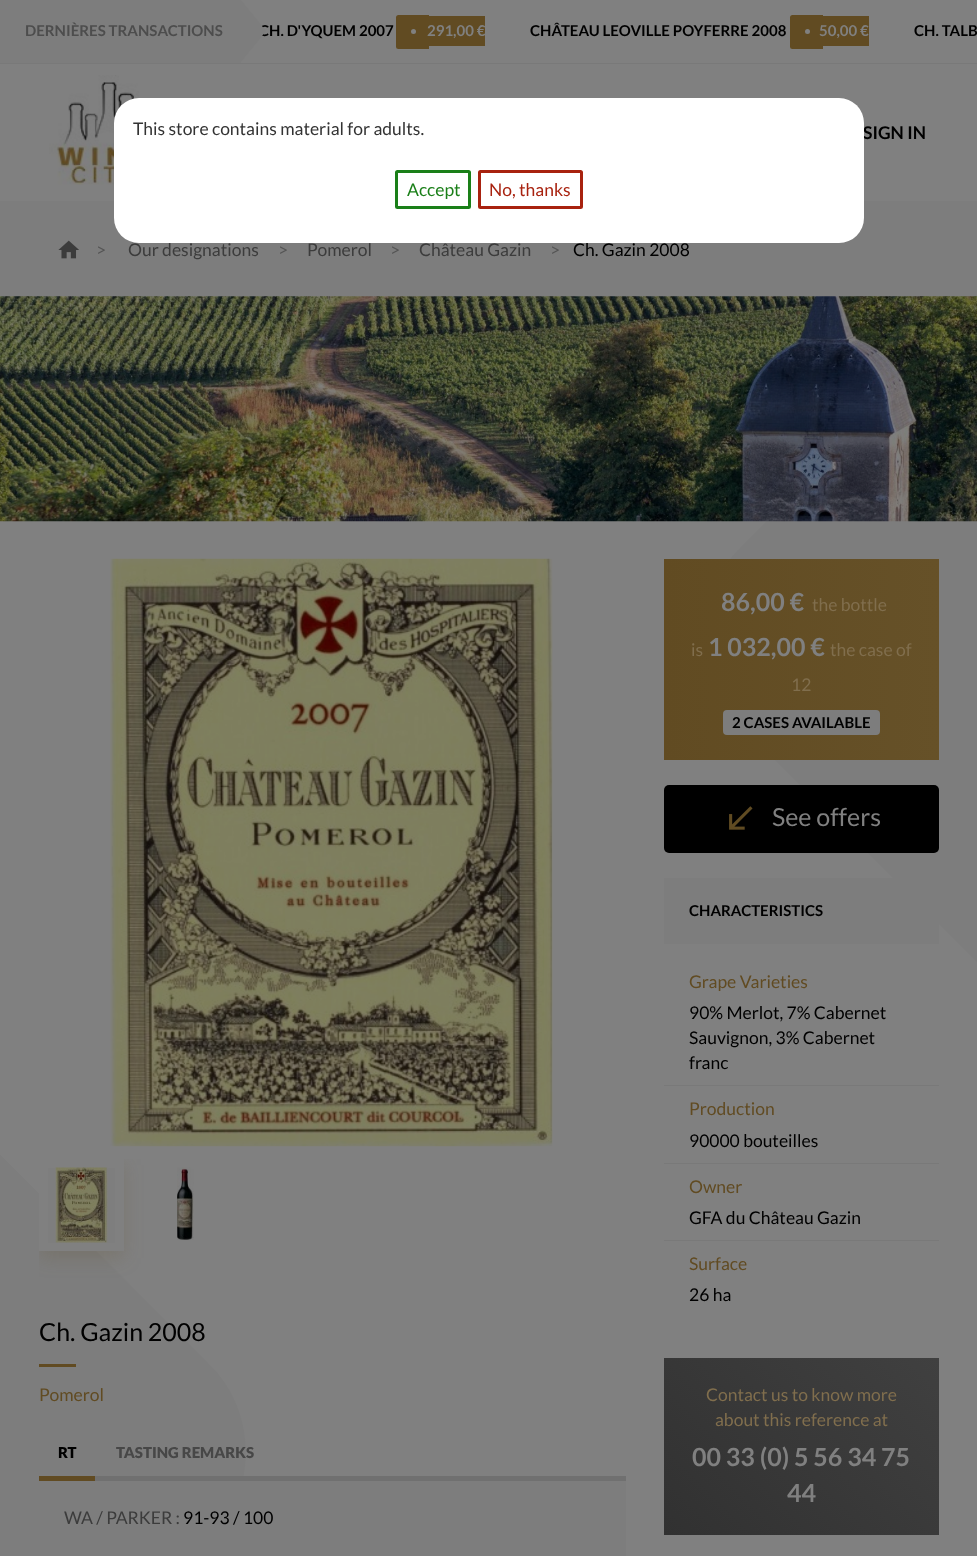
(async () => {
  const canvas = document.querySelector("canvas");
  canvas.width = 977;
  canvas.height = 1556;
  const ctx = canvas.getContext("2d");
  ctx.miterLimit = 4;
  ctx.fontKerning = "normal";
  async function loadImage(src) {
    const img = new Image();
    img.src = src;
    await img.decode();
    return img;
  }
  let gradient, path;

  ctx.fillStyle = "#808080";
  ctx.fillRect(0, 0, 977, 1556);
  ctx.fillStyle = "#797979";
  ctx.fillRect(0, 63, 977, 1);
  ctx.fillStyle = "#7d7d7d";
  ctx.fillRect(0, 0, 241, 63);
  ctx.fillStyle = "#614b22";
  ctx.beginPath();
  ctx.roundRect(396, 15, 33, 34, [2.5, 0, 0, 2.5]);
  ctx.fill();
  ctx.fillRect(429, 16, 56, 30);
  ctx.fillStyle = "#808080";
  ctx.beginPath();
  ctx.arc(413.5, 31.5, 2.5, 0, Math.PI * 2);
  ctx.fill();
  ctx.fillStyle = "#614b22";
  ctx.beginPath();
  ctx.roundRect(790, 15, 33, 34, [2.5, 0, 0, 2.5]);
  ctx.fill();
  ctx.fillRect(823, 16, 46, 30);
  ctx.fillStyle = "#808080";
  ctx.beginPath();
  ctx.arc(807.5, 31.5, 2.5, 0, Math.PI * 2);
  ctx.fill();
  ctx.drawImage(await loadImage("img/1.png"), 49, 75, 110, 110);
  ctx.fillStyle = "#7d7d7d";
  ctx.fillRect(0, 201, 977, 95);
  ctx.drawImage(await loadImage("img/2.png"), 58, 240, 21, 19);
  path = new Path2D("M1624-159L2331 548C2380 597 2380 676 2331 725L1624 1432C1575 1481 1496 1481 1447 1432L740 725C691 676 691 597 740 548L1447-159C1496-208 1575-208 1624-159Z");
  ctx.fill(path);
  ctx.drawImage(await loadImage("img/3.png"), 0, 296, 977, 226);
  path = new Path2D("M-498 656L209 1364C258 1412 258 1492 209 1540L-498 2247C-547 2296-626 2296-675 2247L-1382 1540C-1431 1492-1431 1412-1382 1364L-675 656C-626 608-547 608-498 656Z");
  ctx.fill(path);
  ctx.save();
  ctx.beginPath();
  ctx.rect(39, 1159, 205, 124);
  ctx.clip();
  ctx.fillStyle = "rgba(97, 75, 34, 0.2)";
  ctx.filter = "blur(9.5px)";
  ctx.beginPath();
  ctx.rect(39, 1165, 85, 93);
  ctx.fill();
  ctx.filter = "none";
  ctx.restore();
  ctx.drawImage(await loadImage("img/4.png"), 110, 558, 443, 589);
  ctx.fillStyle = "#7e7e7e";
  ctx.fillRect(48, 1168, 67, 75);
  ctx.strokeStyle = "#808080";
  ctx.lineWidth = 4;
  ctx.strokeRect(41, 1161, 81, 88);
  ctx.lineWidth = 5;
  ctx.strokeRect(45.5, 1165.5, 72, 80);
  ctx.drawImage(await loadImage("img/5.png"), 55, 1167, 53, 76);
  ctx.drawImage(await loadImage("img/6.png"), 177, 1167, 17, 73);
  for (const [x, y, w, h, color] of [
    [39, 1364, 37, 3, "#614b22"],
    [95, 1476, 531, 5, "#707070"],
    [39, 1476, 56, 5, "#614b22"],
    [194, 1481, 432, 75, "#7d7d7d"],
  ]) {
    ctx.fillStyle = color;
    ctx.fillRect(x, y, w, h);
  }
  gradient = ctx.createLinearGradient(664, 659, 939, 659);
  gradient.addColorStop(0, "#614b22");
  gradient.addColorStop(1, "#665128");
  ctx.fillStyle = gradient;
  ctx.fillRect(664, 559, 275, 201);
  ctx.fillStyle = "#7d7d7d";
  ctx.beginPath();
  ctx.roundRect(723, 710, 157, 25, 4);
  ctx.fill();
  ctx.fillStyle = "#000000";
  ctx.beginPath();
  ctx.roundRect(664, 785, 275, 68, 5);
  ctx.fill();
  ctx.drawImage(await loadImage("img/7.png"), 729, 806, 24, 24);
  for (const [x, y, w, h, color] of [
    [664, 878, 275, 66, "#7d7d7d"],
    [664, 1085, 275, 1, "#797979"],
    [664, 1163, 275, 1, "#797979"],
    [664, 1240, 275, 1, "#797979"],
  ]) {
    ctx.fillStyle = color;
    ctx.fillRect(x, y, w, h);
  }
  gradient = ctx.createLinearGradient(688, 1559, 914, 1333);
  gradient.addColorStop(0, "#313131");
  gradient.addColorStop(1, "#404040");
  ctx.fillStyle = gradient;
  ctx.fillRect(664, 1358, 275, 177);
  ctx.font = "bold 15px Lato";
  ctx.fillStyle = "#4d4d4d";
  ctx.fillText("DERNIÈRES TRANSACTIONS", 25, 36);
  ctx.fillStyle = "#000000";
  ctx.fillText("CH. D'YQUEM 2007", 259, 36);
  ctx.fillStyle = "#7d7d7d";
  path = new Path2D("M241 62V0L266 31Z");
  ctx.fill(path);
  ctx.fillStyle = "#000000";
  ctx.fillText("CHÂTEAU LEOVILLE POYFERRE 2008", 530, 36);
  ctx.fillText("CH. TALB", 914, 36);
  ctx.fillStyle = "#808080";
  ctx.fillText("291,00 €", 427, 36);
  ctx.fillText("50,00 €", 819, 36);
  ctx.font = "bold 17.5px Lato";
  ctx.fillStyle = "#000000";
  ctx.fillText("SIGN IN", 863, 139);
  ctx.font = "17.5px Lato";
  ctx.fillStyle = "#555555";
  ctx.fillText(">", 96, 256);
  ctx.fillStyle = "#3c3c3c";
  ctx.fillText("Our designations", 128, 256);
  ctx.fillStyle = "#555555";
  ctx.fillText(">", 278, 256);
  ctx.fillStyle = "#3c3c3c";
  ctx.fillText("Pomerol", 307, 256);
  ctx.fillStyle = "#555555";
  ctx.fillText(">", 390, 256);
  ctx.fillStyle = "#3c3c3c";
  ctx.fillText("Château Gazin", 419, 256);
  ctx.fillStyle = "#555555";
  ctx.fillText(">", 550, 256);
  ctx.fillStyle = "#000000";
  ctx.fillText("Ch. Gazin 2008", 573, 256);
  ctx.font = "25px Lato";
  ctx.fillText("Ch. Gazin 2008", 39, 1341);
  ctx.font = "17.5px Lato";
  ctx.fillStyle = "#614b22";
  ctx.fillText("Pomerol", 39, 1401);
  ctx.font = "900 15px Lato";
  ctx.fillStyle = "#000000";
  ctx.fillText("RT", 58, 1458);
  ctx.fillStyle = "#474747";
  ctx.fillText("TASTING REMARKS", 116, 1458);
  ctx.font = "17.5px Lato";
  ctx.fillStyle = "#3c3c3c";
  ctx.fillText("WA / PARKER :", 64, 1524);
  ctx.fillStyle = "#000000";
  ctx.fillText("91-93 / 100", 183, 1524);
  ctx.font = "bold 25px Lato";
  ctx.fillStyle = "#808080";
  ctx.fillText("86,00 €", 721, 611);
  ctx.font = "17.5px Lato";
  ctx.fillStyle = "#806e4d";
  ctx.fillText("the bottle", 812, 611);
  ctx.fillText("is", 691, 656);
  ctx.font = "bold 25px Lato";
  ctx.fillStyle = "#808080";
  ctx.fillText("1 032,00 €", 708, 656);
  ctx.font = "17.5px Lato";
  ctx.fillStyle = "#806e4d";
  ctx.fillText("the case of", 830, 656);
  ctx.fillText("12", 791, 691);
  ctx.font = "bold 15px Lato";
  ctx.fillStyle = "#000000";
  ctx.fillText("2 CASES AVAILABLE", 732, 728);
  ctx.font = "25px Lato";
  ctx.fillStyle = "#808080";
  ctx.fillText("See offers", 772, 826);
  ctx.font = "bold 15px Lato";
  ctx.fillStyle = "#000000";
  ctx.fillText("CHARACTERISTICS", 689, 916);
  ctx.font = "17.5px Lato";
  ctx.fillStyle = "#614b22";
  ctx.fillText("Grape Varieties", 689, 988);
  ctx.fillStyle = "#000000";
  for (const [text, x, y] of [
    ["90% Merlot, 7% Cabernet", 689, 1019],
    ["Sauvignon, 3% Cabernet", 689, 1044],
    ["franc", 689, 1069],
  ]) {
    ctx.fillText(text, x, y);
  }
  ctx.fillStyle = "#614b22";
  ctx.fillText("Production", 689, 1115);
  ctx.fillStyle = "#000000";
  ctx.fillText("90000 bouteilles", 689, 1147);
  ctx.fillStyle = "#614b22";
  ctx.fillText("Owner", 689, 1193);
  ctx.fillStyle = "#000000";
  ctx.fillText("GFA du Château Gazin", 689, 1224);
  ctx.fillStyle = "#614b22";
  ctx.fillText("Surface", 689, 1270);
  ctx.fillStyle = "#000000";
  ctx.fillText("26 ha", 689, 1301);
  ctx.fillStyle = "#806e4d";
  ctx.fillText("Contact us to know more", 706, 1401);
  ctx.fillText("about this reference at", 715, 1426);
  ctx.font = "bold 25px Lato";
  ctx.fillStyle = "#808080";
  ctx.fillText("00 33 (0) 5 56 34 75", 692, 1466);
  ctx.fillText("44", 787, 1502);
  ctx.fillStyle = "#ffffff";
  ctx.beginPath();
  ctx.roundRect(114, 98, 750, 145, 25);
  ctx.fill();
  ctx.font = "17.5px Lato";
  ctx.fillStyle = "#333333";
  ctx.fillText("This store contains material for adults.", 133, 135);
  ctx.beginPath();
  ctx.roundRect(396.5, 171.5, 73, 36, 1);
  ctx.strokeStyle = "#1a7f18";
  ctx.lineWidth = 3;
  ctx.stroke();
  ctx.fillStyle = "#1a7f18";
  ctx.fillText("Accept", 407, 196);
  ctx.beginPath();
  ctx.roundRect(479.5, 171.5, 102, 36, 1);
  ctx.strokeStyle = "#a8220f";
  ctx.stroke();
  ctx.fillStyle = "#a8220f";
  ctx.fillText("No, thanks", 489, 196);
})();
